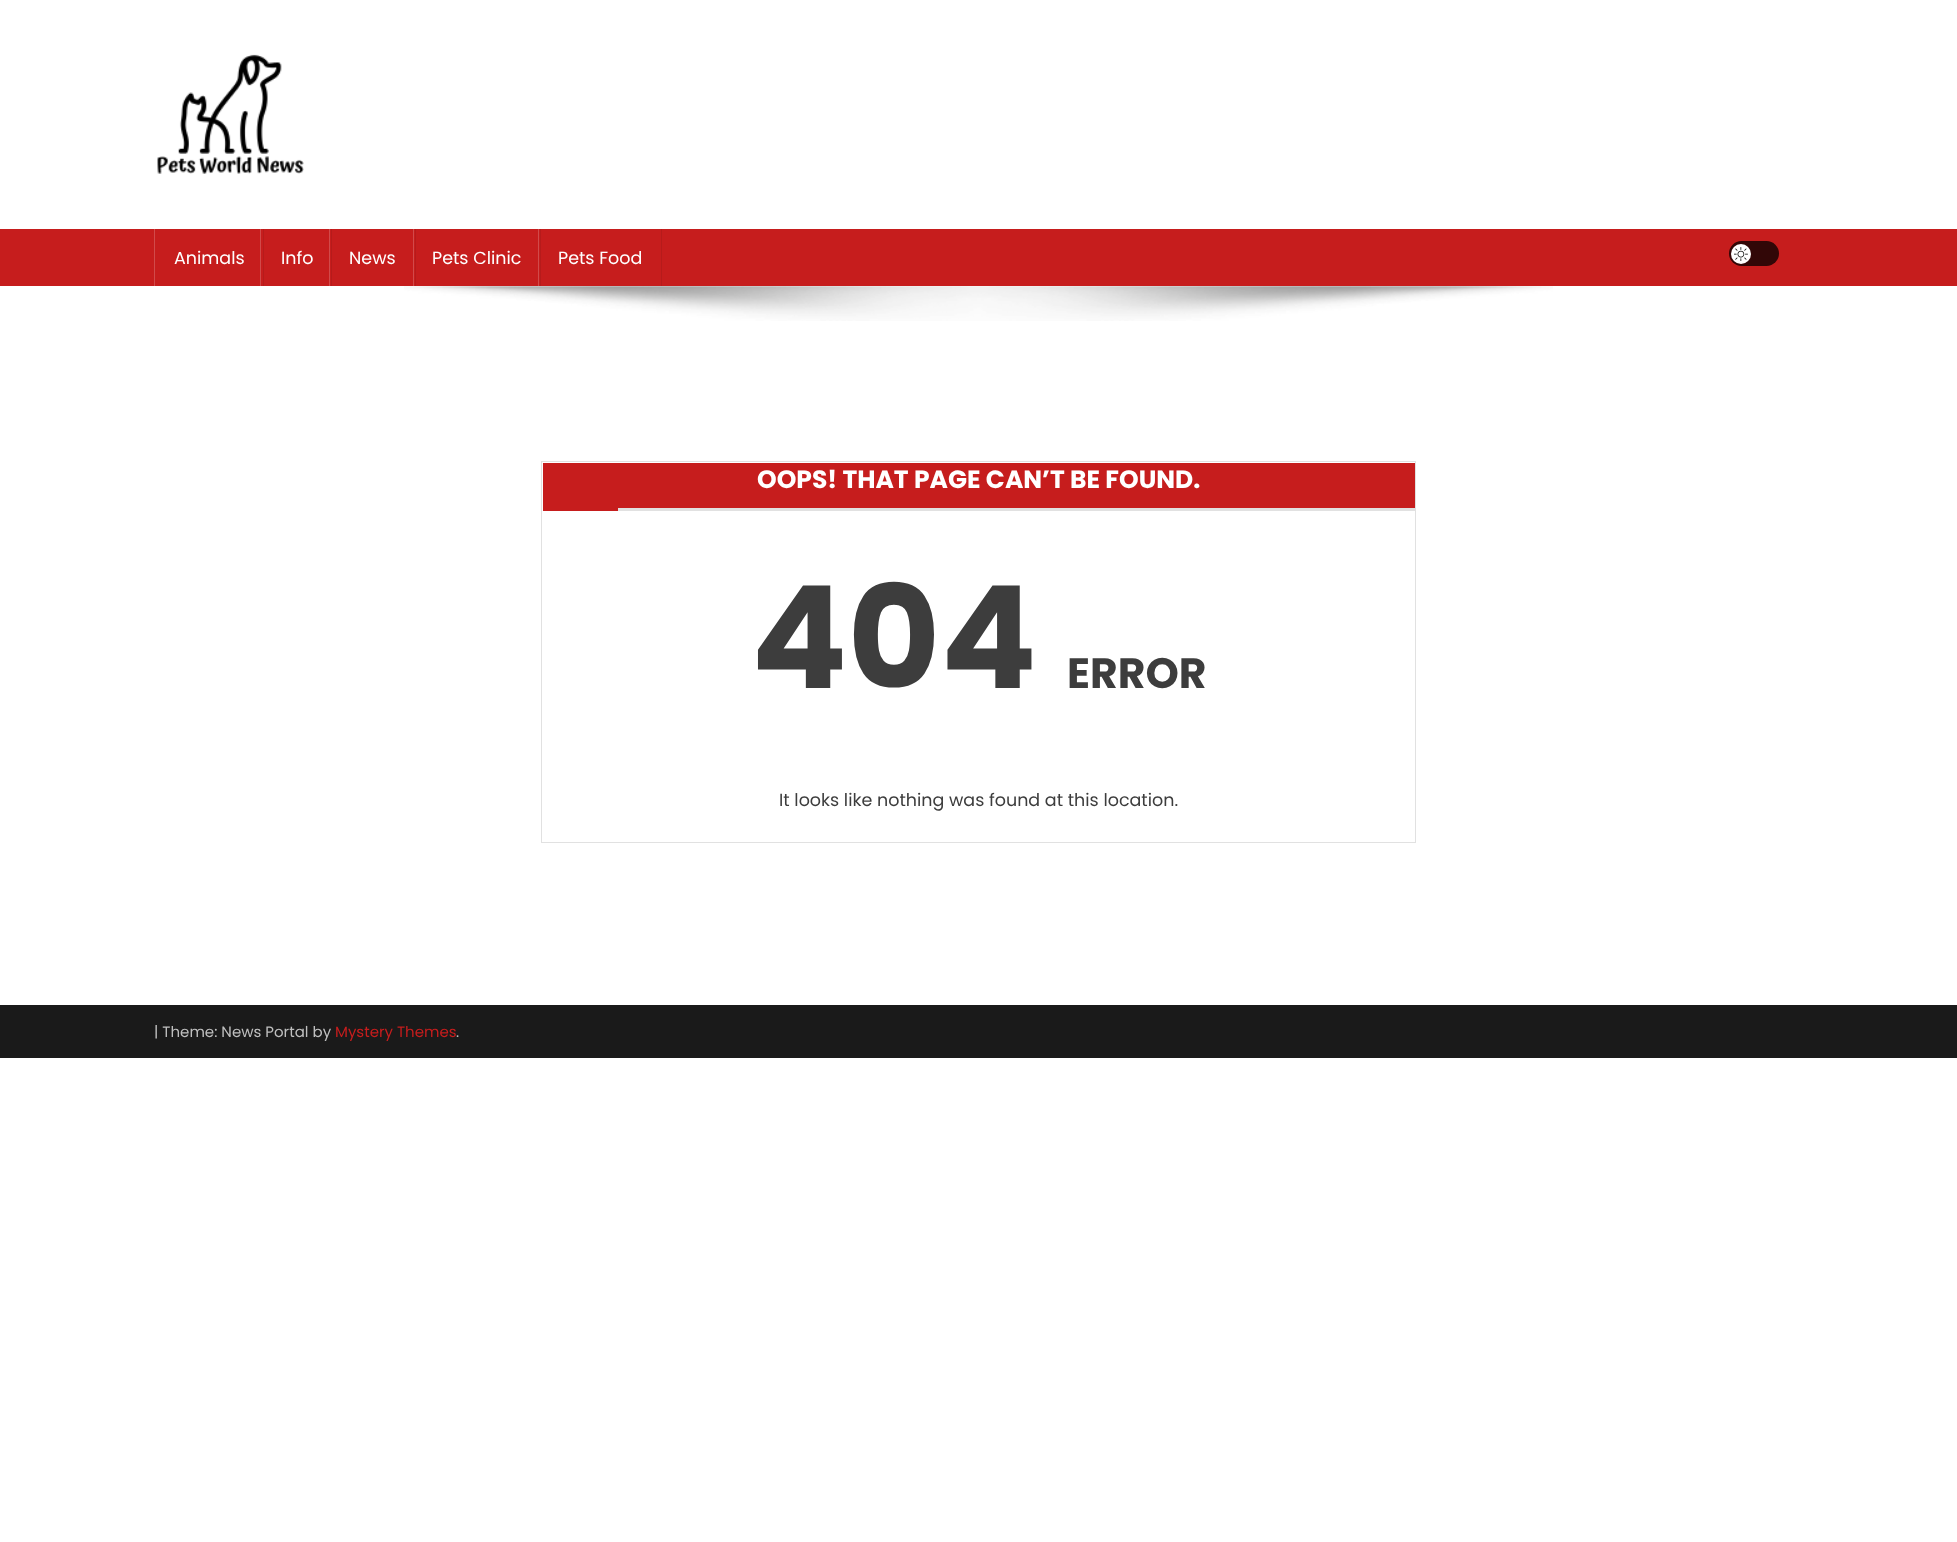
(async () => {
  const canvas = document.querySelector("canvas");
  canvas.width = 1957;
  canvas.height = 1542;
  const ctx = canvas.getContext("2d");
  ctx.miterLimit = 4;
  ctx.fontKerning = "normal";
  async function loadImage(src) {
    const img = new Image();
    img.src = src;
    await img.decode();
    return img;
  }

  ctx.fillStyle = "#ffffff";
  ctx.fillRect(0, 0, 1957, 1542);
  ctx.drawImage(await loadImage("img/1.png"), 157, 54, 147, 120);
  for (const [x, y, w, h, color] of [
    [0, 229, 1957, 57, "#c61d1d"],
    [263, 229, 1, 57, "#b61b1b"],
    [154, 229, 1, 57, "#d14a4a"],
    [331, 229, 1, 57, "#b61b1b"],
    [260, 229, 1, 57, "#d14a4a"],
    [415, 229, 1, 57, "#b61b1b"],
    [329, 229, 1, 57, "#d14a4a"],
    [540, 229, 1, 57, "#b61b1b"],
    [413, 229, 1, 57, "#d14a4a"],
    [661, 229, 1, 57, "#b61b1b"],
    [538, 229, 1, 57, "#d14a4a"],
  ]) {
    ctx.fillStyle = color;
    ctx.fillRect(x, y, w, h);
  }
  ctx.fillStyle = "#320707";
  ctx.beginPath();
  ctx.roundRect(1729, 241, 50, 25, 12.5);
  ctx.fill();
  ctx.fillStyle = "#ffffff";
  ctx.beginPath();
  ctx.arc(1741, 254, 10, 0, Math.PI * 2);
  ctx.fill();
  ctx.drawImage(await loadImage("img/2.png"), 1734, 247, 14, 14);
  ctx.drawImage(await loadImage("img/3.png"), 404, 286, 1149, 35);
  ctx.strokeStyle = "#e1e1e1";
  ctx.strokeRect(541.5, 461.5, 874, 381);
  for (const [x, y, w, h, color] of [
    [543, 463, 872, 45, "#c61d1d"],
    [618, 508, 797, 3, "#e1e1e1"],
    [543, 508, 75, 3, "#c61d1d"],
    [0, 1005, 1957, 53, "#1a1a1a"],
  ]) {
    ctx.fillStyle = color;
    ctx.fillRect(x, y, w, h);
  }
  ctx.font = "17.5px Poppins";
  ctx.fillStyle = "#ffffff";
  for (const [text, x, y] of [
    ["Animals", 174, 264],
    ["Info", 281, 264],
    ["News", 349, 264],
    ["Pets Clinic", 432, 264],
    ["Pets Food", 558, 264],
  ]) {
    ctx.fillText(text, x, y);
  }
  ctx.font = "bold 25px Poppins";
  ctx.fillText("OOPS! THAT PAGE CAN’T BE FOUND.", 757, 488);
  ctx.font = "bold 142.5px Poppins";
  ctx.fillStyle = "#3d3d3d";
  ctx.fillText("404", 751, 688);
  ctx.font = "bold 42.5px Poppins";
  ctx.fillText("ERROR", 1067, 688);
  ctx.font = "17.5px Poppins";
  ctx.fillText("It looks like nothing was found at this location.", 779, 806);
  ctx.font = "15px Poppins";
  ctx.fillStyle = "#bfbfbf";
  ctx.fillText("| Theme: News Portal by", 154, 1037);
  ctx.fillStyle = "#c61d1d";
  ctx.fillText("Mystery Themes", 335, 1037);
  ctx.fillStyle = "#bfbfbf";
  ctx.fillText(".", 456, 1037);
})();
